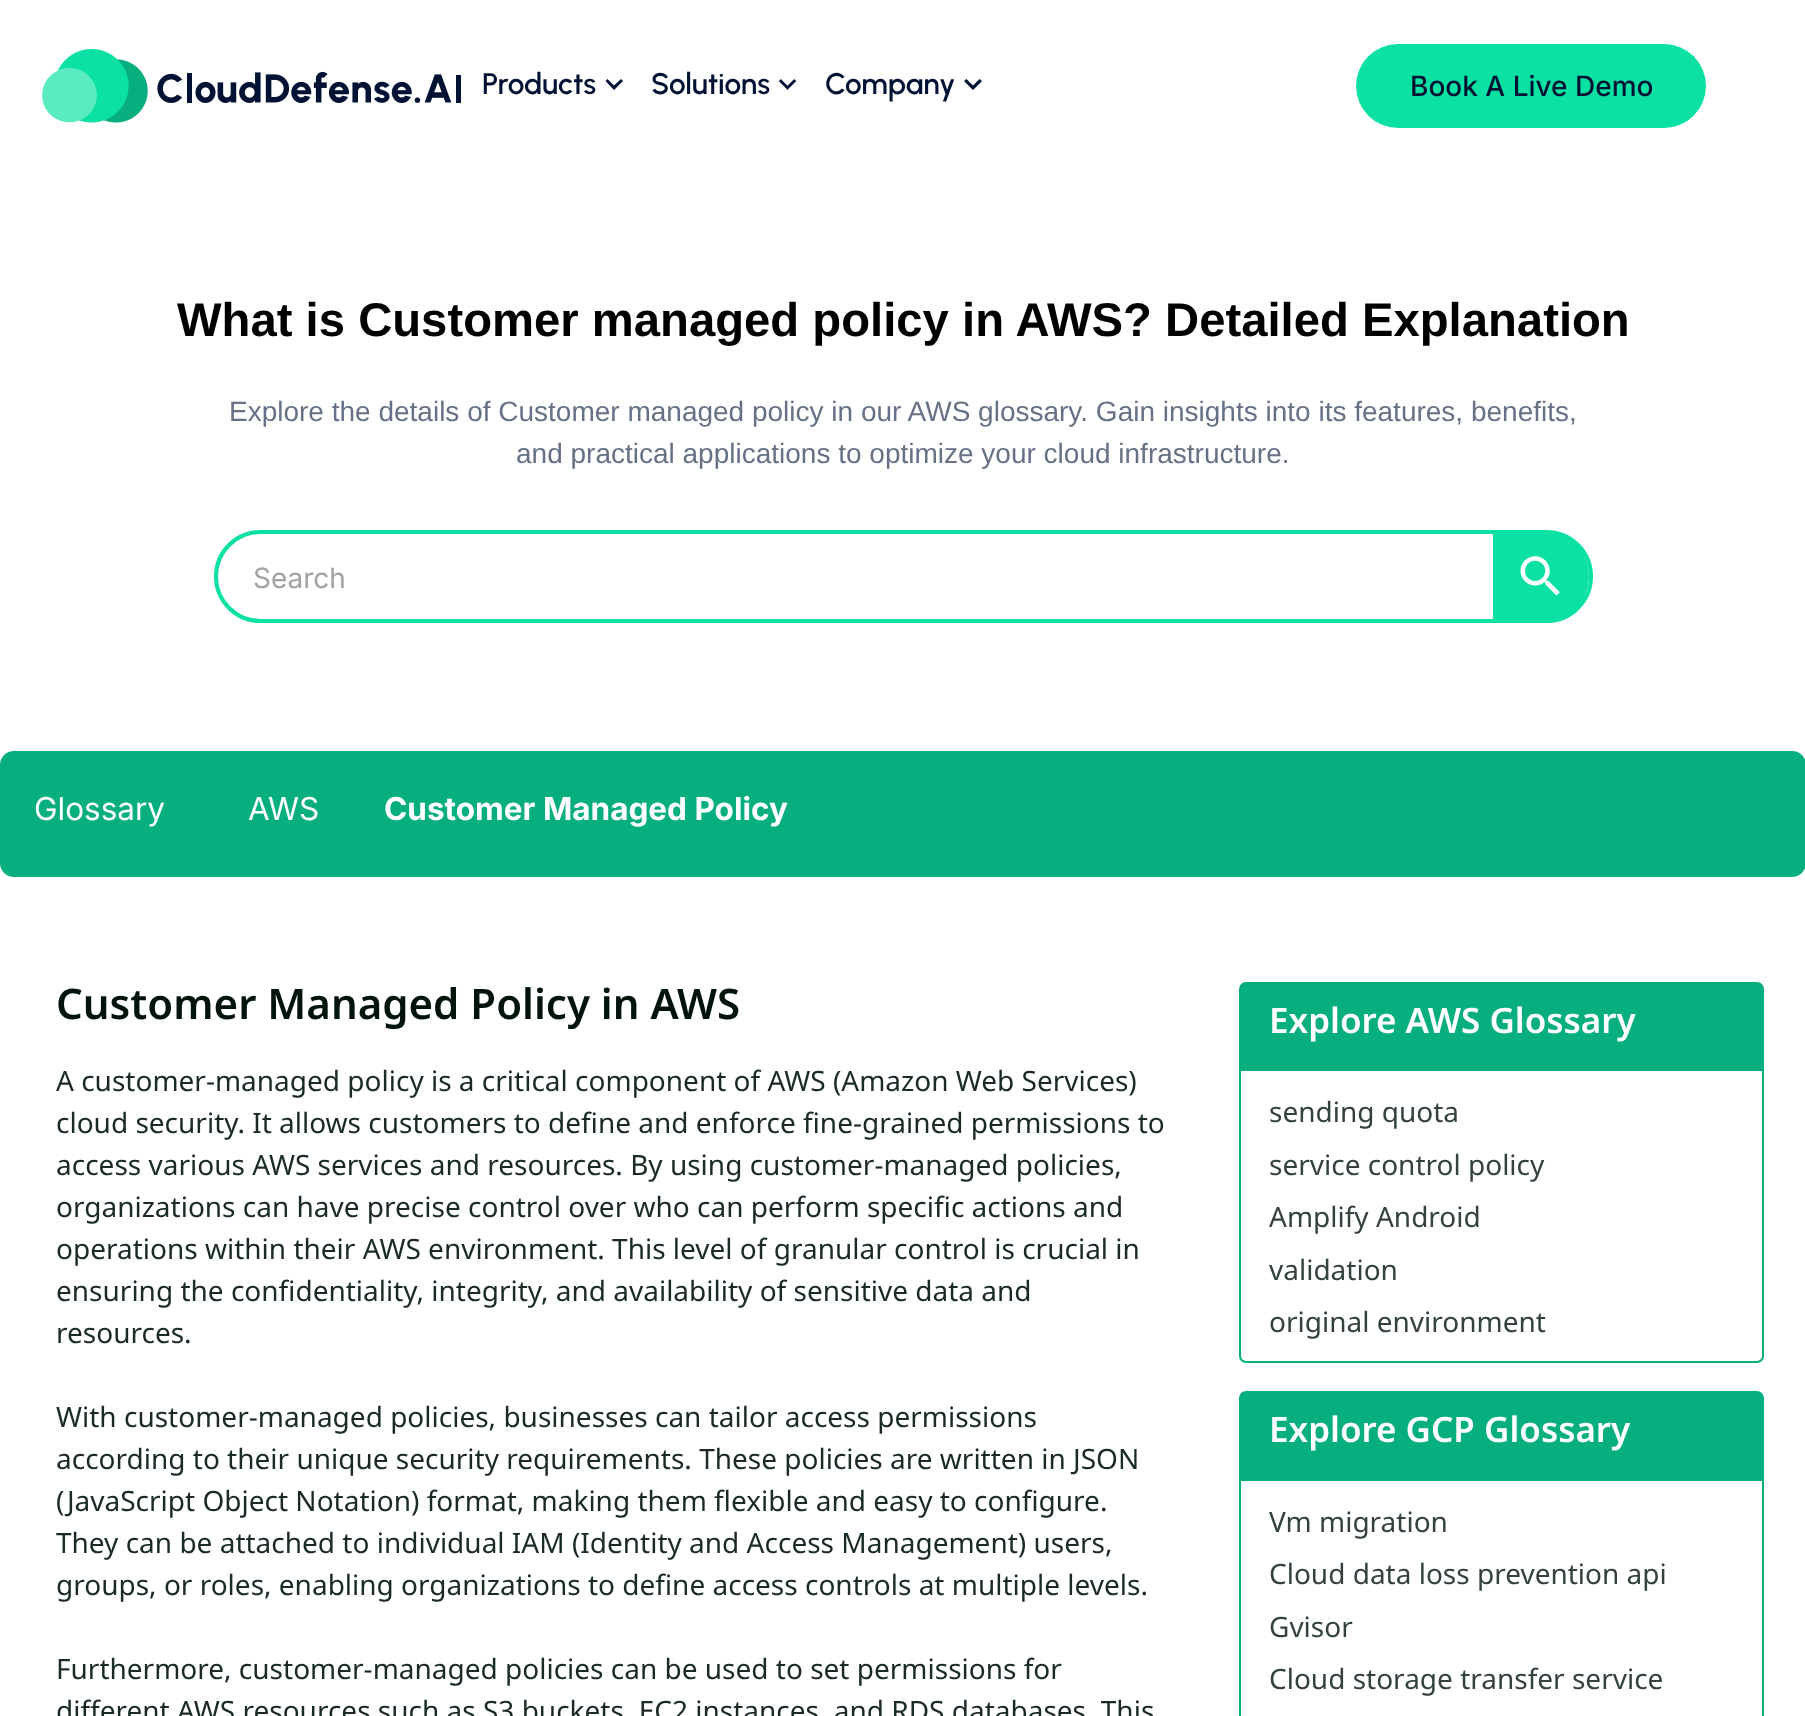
(async () => {
  const canvas = document.querySelector("canvas");
  canvas.width = 1805;
  canvas.height = 1716;
  const ctx = canvas.getContext("2d");
  ctx.miterLimit = 4;
  ctx.fontKerning = "normal";
  async function loadImage(src) {
    const img = new Image();
    img.src = src;
    await img.decode();
    return img;
  }
  let path;

  ctx.fillStyle = "#ffffff";
  ctx.fillRect(0, 0, 1805, 1716);
  ctx.drawImage(await loadImage("img/1.png"), 42, 49, 419, 74);
  ctx.fillStyle = "#001233";
  path = new Path2D("M607.5 79L614 85.5L621 79L623 81L614 90L605.5 81Z");
  ctx.fill(path);
  ctx.drawImage(await loadImage("img/2.png"), 778, 79, 19, 11);
  path = new Path2D("M966.5 79L973 85.5L979.5 79L982 81L973 90L964 81Z");
  ctx.fill(path);
  ctx.fillStyle = "#0ae1a3";
  ctx.beginPath();
  ctx.roundRect(1356, 44, 350, 84, 42);
  ctx.fill();
  ctx.beginPath();
  ctx.roundRect(216, 532, 1375, 89, 44.5);
  ctx.strokeStyle = "#0ae1a3";
  ctx.lineWidth = 4;
  ctx.stroke();
  ctx.beginPath();
  ctx.roundRect(1493, 532, 96, 89, [0, 44.5, 44.5, 0]);
  ctx.fill();
  ctx.drawImage(await loadImage("img/3.png"), 1520, 556, 40, 40);
  ctx.fillStyle = "#07af7e";
  ctx.beginPath();
  ctx.roundRect(0, 751, 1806, 126, 14);
  ctx.fill();
  ctx.beginPath();
  ctx.roundRect(1240, 983, 523, 379, 6);
  ctx.strokeStyle = "#07af7e";
  ctx.lineWidth = 2;
  ctx.stroke();
  ctx.fillRect(1241, 984, 521, 87);
  ctx.beginPath();
  ctx.roundRect(1240, 1392, 523, 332, 6);
  ctx.stroke();
  ctx.fillRect(1241, 1393, 521, 88);
  ctx.font = "600 29.75px Urbanist";
  ctx.fillStyle = "#001233";
  for (const [text, x, y] of [
    ["Products", 482, 94],
    ["Solutions", 651, 94],
    ["Company", 825, 94],
  ]) {
    ctx.fillText(text, x, y);
  }
  ctx.font = "500 28px Inter";
  ctx.fillText("Book A Live Demo", 1410, 96);
  ctx.font = "bold 47.25px Liberation Sans";
  ctx.fillStyle = "#000000";
  ctx.fillText("What is Customer managed policy in AWS? Detailed Explanation", 177, 336);
  ctx.font = "28px Liberation Sans";
  ctx.fillStyle = "#667185";
  ctx.fillText("Explore the details of Customer managed policy in our AWS glossary. Gain insights into its features, benefits,", 229, 421);
  ctx.fillText("and practical applications to optimize your cloud infrastructure.", 516, 463);
  ctx.font = "28px Inter";
  ctx.fillStyle = "#a2a2a2";
  ctx.fillText("Search", 253, 588);
  ctx.font = "31.5px Inter";
  ctx.fillStyle = "#ffffff";
  ctx.fillText("Glossary", 34, 820);
  ctx.fillText("AWS", 248, 820);
  ctx.font = "bold 31.5px Inter";
  ctx.fillText("Customer Managed Policy", 384, 820);
  ctx.font = "600 42px Noto Sans";
  ctx.fillStyle = "#01130e";
  ctx.fillText("Customer Managed Policy in AWS", 56, 1019);
  ctx.font = "28px Noto Sans";
  ctx.fillStyle = "#1a2b26";
  for (const [text, x, y] of [
    ["A customer-managed policy is a critical component of AWS (Amazon Web Services)", 56, 1091],
    ["cloud security. It allows customers to define and enforce fine-grained permissions to", 56, 1133],
    ["access various AWS services and resources. By using customer-managed policies,", 56, 1175],
    ["organizations can have precise control over who can perform specific actions and", 56, 1217],
    ["operations within their AWS environment. This level of granular control is crucial in", 56, 1259],
    ["ensuring the confidentiality, integrity, and availability of sensitive data and", 56, 1301],
    ["resources.", 56, 1343],
    ["With customer-managed policies, businesses can tailor access permissions", 56, 1427],
    ["according to their unique security requirements. These policies are written in JSON", 56, 1469],
    ["(JavaScript Object Notation) format, making them flexible and easy to configure.", 56, 1511],
    ["They can be attached to individual IAM (Identity and Access Management) users,", 56, 1553],
    ["groups, or roles, enabling organizations to define access controls at multiple levels.", 56, 1595],
    ["Furthermore, customer-managed policies can be used to set permissions for", 56, 1679],
    ["different AWS resources such as S3 buckets, EC2 instances, and RDS databases. This", 56, 1721],
  ]) {
    ctx.fillText(text, x, y);
  }
  ctx.font = "600 35px Noto Sans";
  ctx.fillStyle = "#ffffff";
  ctx.fillText("Explore AWS Glossary", 1269, 1033);
  ctx.font = "28px Noto Sans";
  ctx.fillStyle = "#34423e";
  for (const [text, x, y] of [
    ["sending quota", 1269, 1122],
    ["service control policy", 1269, 1175],
    ["Amplify Android", 1269, 1227],
    ["validation", 1269, 1280],
    ["original environment", 1269, 1332],
  ]) {
    ctx.fillText(text, x, y);
  }
  ctx.font = "600 35px Noto Sans";
  ctx.fillStyle = "#ffffff";
  ctx.fillText("Explore GCP Glossary", 1269, 1442);
  ctx.font = "28px Noto Sans";
  ctx.fillStyle = "#34423e";
  for (const [text, x, y] of [
    ["Vm migration", 1269, 1532],
    ["Cloud data loss prevention api", 1269, 1584],
    ["Gvisor", 1269, 1637],
    ["Cloud storage transfer service", 1269, 1689],
  ]) {
    ctx.fillText(text, x, y);
  }
})();
